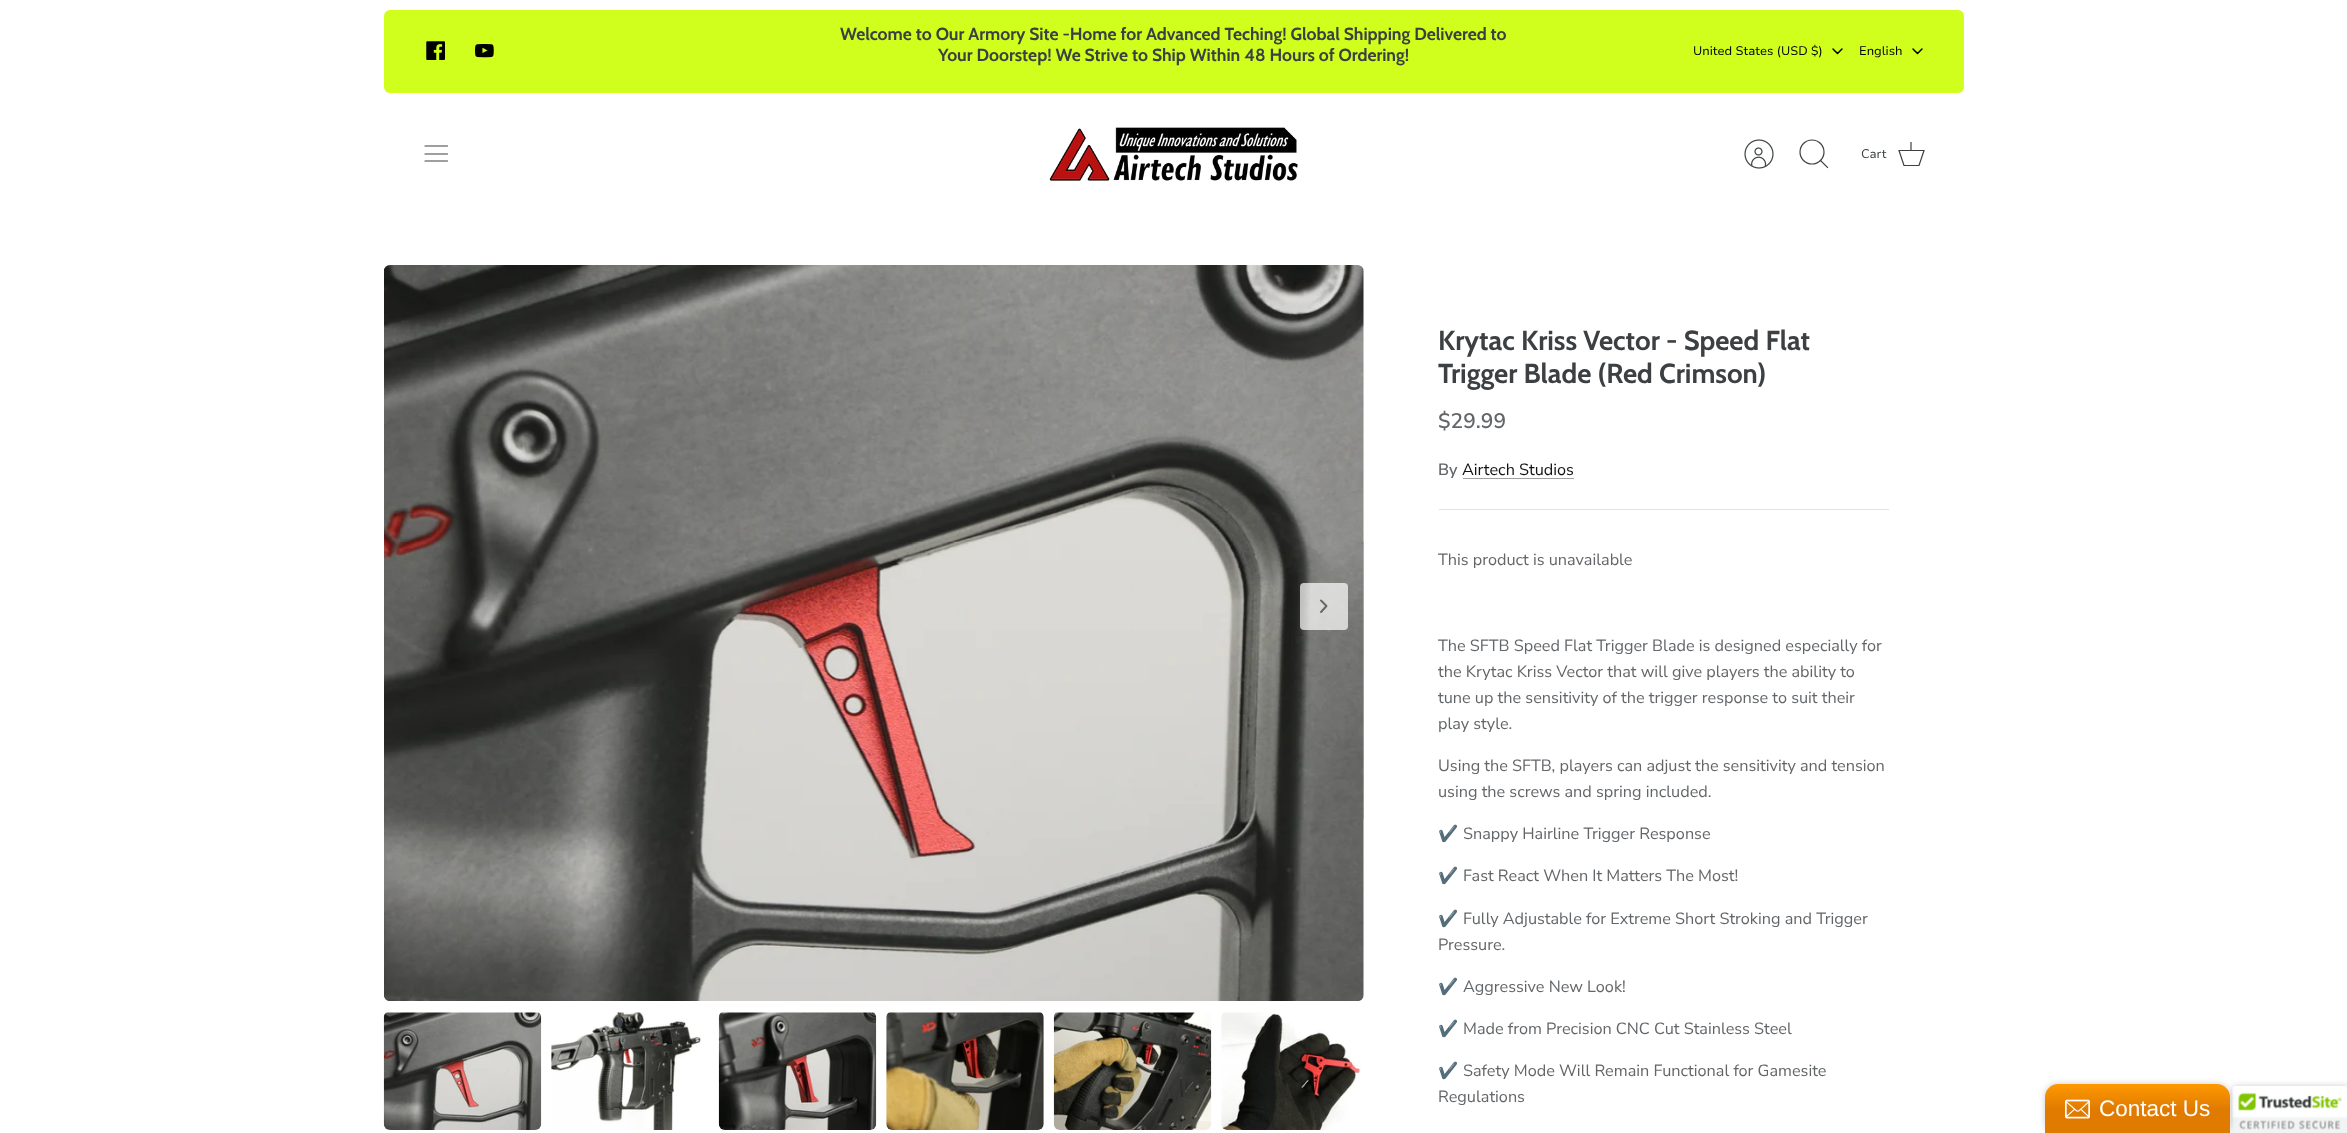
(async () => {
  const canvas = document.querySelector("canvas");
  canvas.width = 2347;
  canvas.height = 1133;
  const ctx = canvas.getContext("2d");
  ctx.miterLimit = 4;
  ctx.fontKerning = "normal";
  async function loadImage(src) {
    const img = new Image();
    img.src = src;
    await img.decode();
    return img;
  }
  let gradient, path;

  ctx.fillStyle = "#ffffff";
  ctx.fillRect(0, 0, 2347, 1133);
  ctx.fillStyle = "#d0fe1d";
  ctx.beginPath();
  ctx.roundRect(384, 10, 1580, 83, 6);
  ctx.fill();
  ctx.drawImage(await loadImage("img/1.png"), 426, 41, 19, 19);
  ctx.drawImage(await loadImage("img/2.png"), 475, 44, 19, 14);
  path = new Path2D("M1833 49L1837.5 53.5L1842 49");
  ctx.strokeStyle = "#020202";
  ctx.lineWidth = 1.5;
  ctx.lineCap = "round";
  ctx.lineJoin = "round";
  ctx.stroke(path);
  path = new Path2D("M1913 49L1917.5 53.5L1922 49");
  ctx.stroke(path);
  path = new Path2D("M425 154H447.5M425 146H447.5M425 161H447.5");
  ctx.strokeStyle = "#3c4043";
  ctx.lineWidth = 1.2;
  ctx.stroke(path);
  ctx.drawImage(await loadImage("img/3.png"), 1049, 127, 249, 54);
  ctx.drawImage(await loadImage("img/4.png"), 1744, 139, 30, 30);
  ctx.beginPath();
  ctx.arc(1812, 152, 12, 0, Math.PI * 2);
  ctx.stroke();
  path = new Path2D("M1820.5 160.5L1827.5 167.5");
  ctx.lineCap = "square";
  ctx.lineJoin = "miter";
  ctx.stroke(path);
  path = new Path2D("M1899 150.5H1924L1919 165.5H1904Z");
  ctx.lineCap = "butt";
  ctx.stroke(path);
  path = new Path2D("M1911 150V142.5");
  ctx.lineCap = "square";
  ctx.stroke(path);
  ctx.drawImage(await loadImage("img/5.png"), 384, 265, 980, 736);
  ctx.fillStyle = "rgba(255, 255, 255, 0.7)";
  ctx.beginPath();
  ctx.roundRect(1300, 583, 48, 47, 4);
  ctx.fill();
  path = new Path2D("M1321 612L1326.5 606L1321 600.5");
  ctx.strokeStyle = "#636669";
  ctx.lineWidth = 1.9;
  ctx.lineCap = "round";
  ctx.lineJoin = "round";
  ctx.stroke(path);
  ctx.drawImage(await loadImage("img/6.png"), 383, 1012, 159, 118);
  ctx.drawImage(await loadImage("img/7.png"), 551, 1012, 151, 118);
  ctx.drawImage(await loadImage("img/8.png"), 718, 1012, 159, 118);
  ctx.drawImage(await loadImage("img/9.png"), 886, 1012, 158, 118);
  ctx.drawImage(await loadImage("img/10.png"), 1053, 1012, 159, 118);
  ctx.drawImage(await loadImage("img/11.png"), 1221, 1012, 140, 118);
  ctx.fillStyle = "#a0a0a0";
  ctx.fillRect(1463, 478, 111, 1);
  ctx.fillStyle = "#e2e2e2";
  ctx.fillRect(1439, 509, 450, 1);
  ctx.fillStyle = "rgba(0, 0, 0, 0.2)";
  ctx.filter = "blur(3px)";
  ctx.beginPath();
  ctx.roundRect(2233, 1086, 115, 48, 2.5);
  ctx.fill();
  ctx.filter = "none";
  ctx.fillStyle = "#ffffff";
  path = new Path2D("M2235.5 1086H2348V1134H2233V1088.5C2233 1087 2234 1086 2235.5 1086Z");
  ctx.fill(path);
  ctx.drawImage(await loadImage("img/13.png"), 2232, 1086, 115, 47);
  ctx.fillStyle = "rgba(0, 0, 0, 0.2)";
  ctx.filter = "blur(3px)";
  ctx.beginPath();
  ctx.roundRect(2045, 1084, 185, 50, 13);
  ctx.fill();
  ctx.filter = "none";
  gradient = ctx.createLinearGradient(2138, 1084, 2138, 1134);
  gradient.addColorStop(0, "#ff9900");
  gradient.addColorStop(0.5, "#e17b00");
  ctx.fillStyle = gradient;
  path = new Path2D("M2058 1084H2217C2224 1084 2230 1090 2230 1097V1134H2045V1097C2045 1090 2051 1084 2058 1084Z");
  ctx.fill(path);
  ctx.drawImage(await loadImage("img/12.png"), 2065, 1099, 25, 20);
  ctx.font = "bold 17.5px Cabin";
  ctx.fillStyle = "#3c4043";
  ctx.fillText("Welcome to Our Armory Site -Home for Advanced Teching! Global Shipping Delivered to", 840, 40);
  ctx.fillText("Your Doorstep! We Strive to Ship Within 48 Hours of Ordering!", 938, 61);
  ctx.font = "12.5px Nunito Sans";
  ctx.fillStyle = "#020202";
  ctx.fillText("United States (USD $)", 1693, 55);
  ctx.fillText("English", 1859, 55);
  ctx.fillStyle = "#3c4043";
  ctx.fillText("Cart", 1861, 158);
  ctx.font = "bold 27.5px Cabin";
  ctx.fillText("Krytac Kriss Vector - Speed Flat", 1438, 350);
  ctx.fillText("Trigger Blade (Red Crimson)", 1438, 383);
  ctx.font = "600 21px Nunito Sans";
  ctx.fillStyle = "#636669";
  ctx.fillText("$29.99", 1438, 428);
  ctx.font = "600 16.25px Nunito Sans";
  ctx.fillText("By", 1438, 475);
  ctx.font = "16.25px 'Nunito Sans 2'";
  ctx.fillStyle = "#121212";
  ctx.fillText("Airtech Studios", 1462, 475);
  ctx.fillStyle = "#636669";
  for (const [text, x, y] of [
    ["This product is unavailable", 1438, 565],
    ["The SFTB Speed Flat Trigger Blade is designed especially for", 1438, 651],
    ["the Krytac Kriss Vector that will give players the ability to", 1438, 677],
    ["tune up the sensitivity of the trigger response to suit their", 1438, 703],
    ["play style.", 1438, 729],
    ["Using the SFTB, players can adjust the sensitivity and tension", 1438, 771],
    ["using the screws and spring included.", 1438, 797],
  ]) {
    ctx.fillText(text, x, y);
  }
  ctx.font = "16.25px Noto Color Emoji";
  ctx.fillText("✔️", 1438, 839);
  ctx.font = "16.25px 'Nunito Sans 2'";
  ctx.fillText("Snappy Hairline Trigger Response", 1463, 839);
  ctx.font = "16.25px Noto Color Emoji";
  ctx.fillText("✔️", 1438, 881);
  ctx.font = "16.25px 'Nunito Sans 2'";
  ctx.fillText("Fast React When It Matters The Most!", 1463, 881);
  ctx.font = "16.25px Noto Color Emoji";
  ctx.fillText("✔️", 1438, 924);
  ctx.font = "16.25px 'Nunito Sans 2'";
  ctx.fillText("Fully Adjustable for Extreme Short Stroking and Trigger", 1463, 924);
  ctx.fillText("Pressure.", 1438, 950);
  ctx.font = "16.25px Noto Color Emoji";
  ctx.fillText("✔️", 1438, 992);
  ctx.font = "16.25px 'Nunito Sans 2'";
  ctx.fillText("Aggressive New Look!", 1463, 992);
  ctx.font = "16.25px Noto Color Emoji";
  ctx.fillText("✔️", 1438, 1034);
  ctx.font = "16.25px 'Nunito Sans 2'";
  ctx.fillText("Made from Precision CNC Cut Stainless Steel", 1463, 1034);
  ctx.font = "16.25px Noto Color Emoji";
  ctx.fillText("✔️", 1438, 1076);
  ctx.font = "16.25px 'Nunito Sans 2'";
  ctx.fillText("Safety Mode Will Remain Functional for Gamesite", 1463, 1076);
  ctx.fillText("Regulations", 1438, 1102);
  ctx.font = "22.5px Liberation Sans";
  ctx.fillStyle = "#ffffff";
  ctx.fillText("Contact Us", 2099, 1116);
})();
